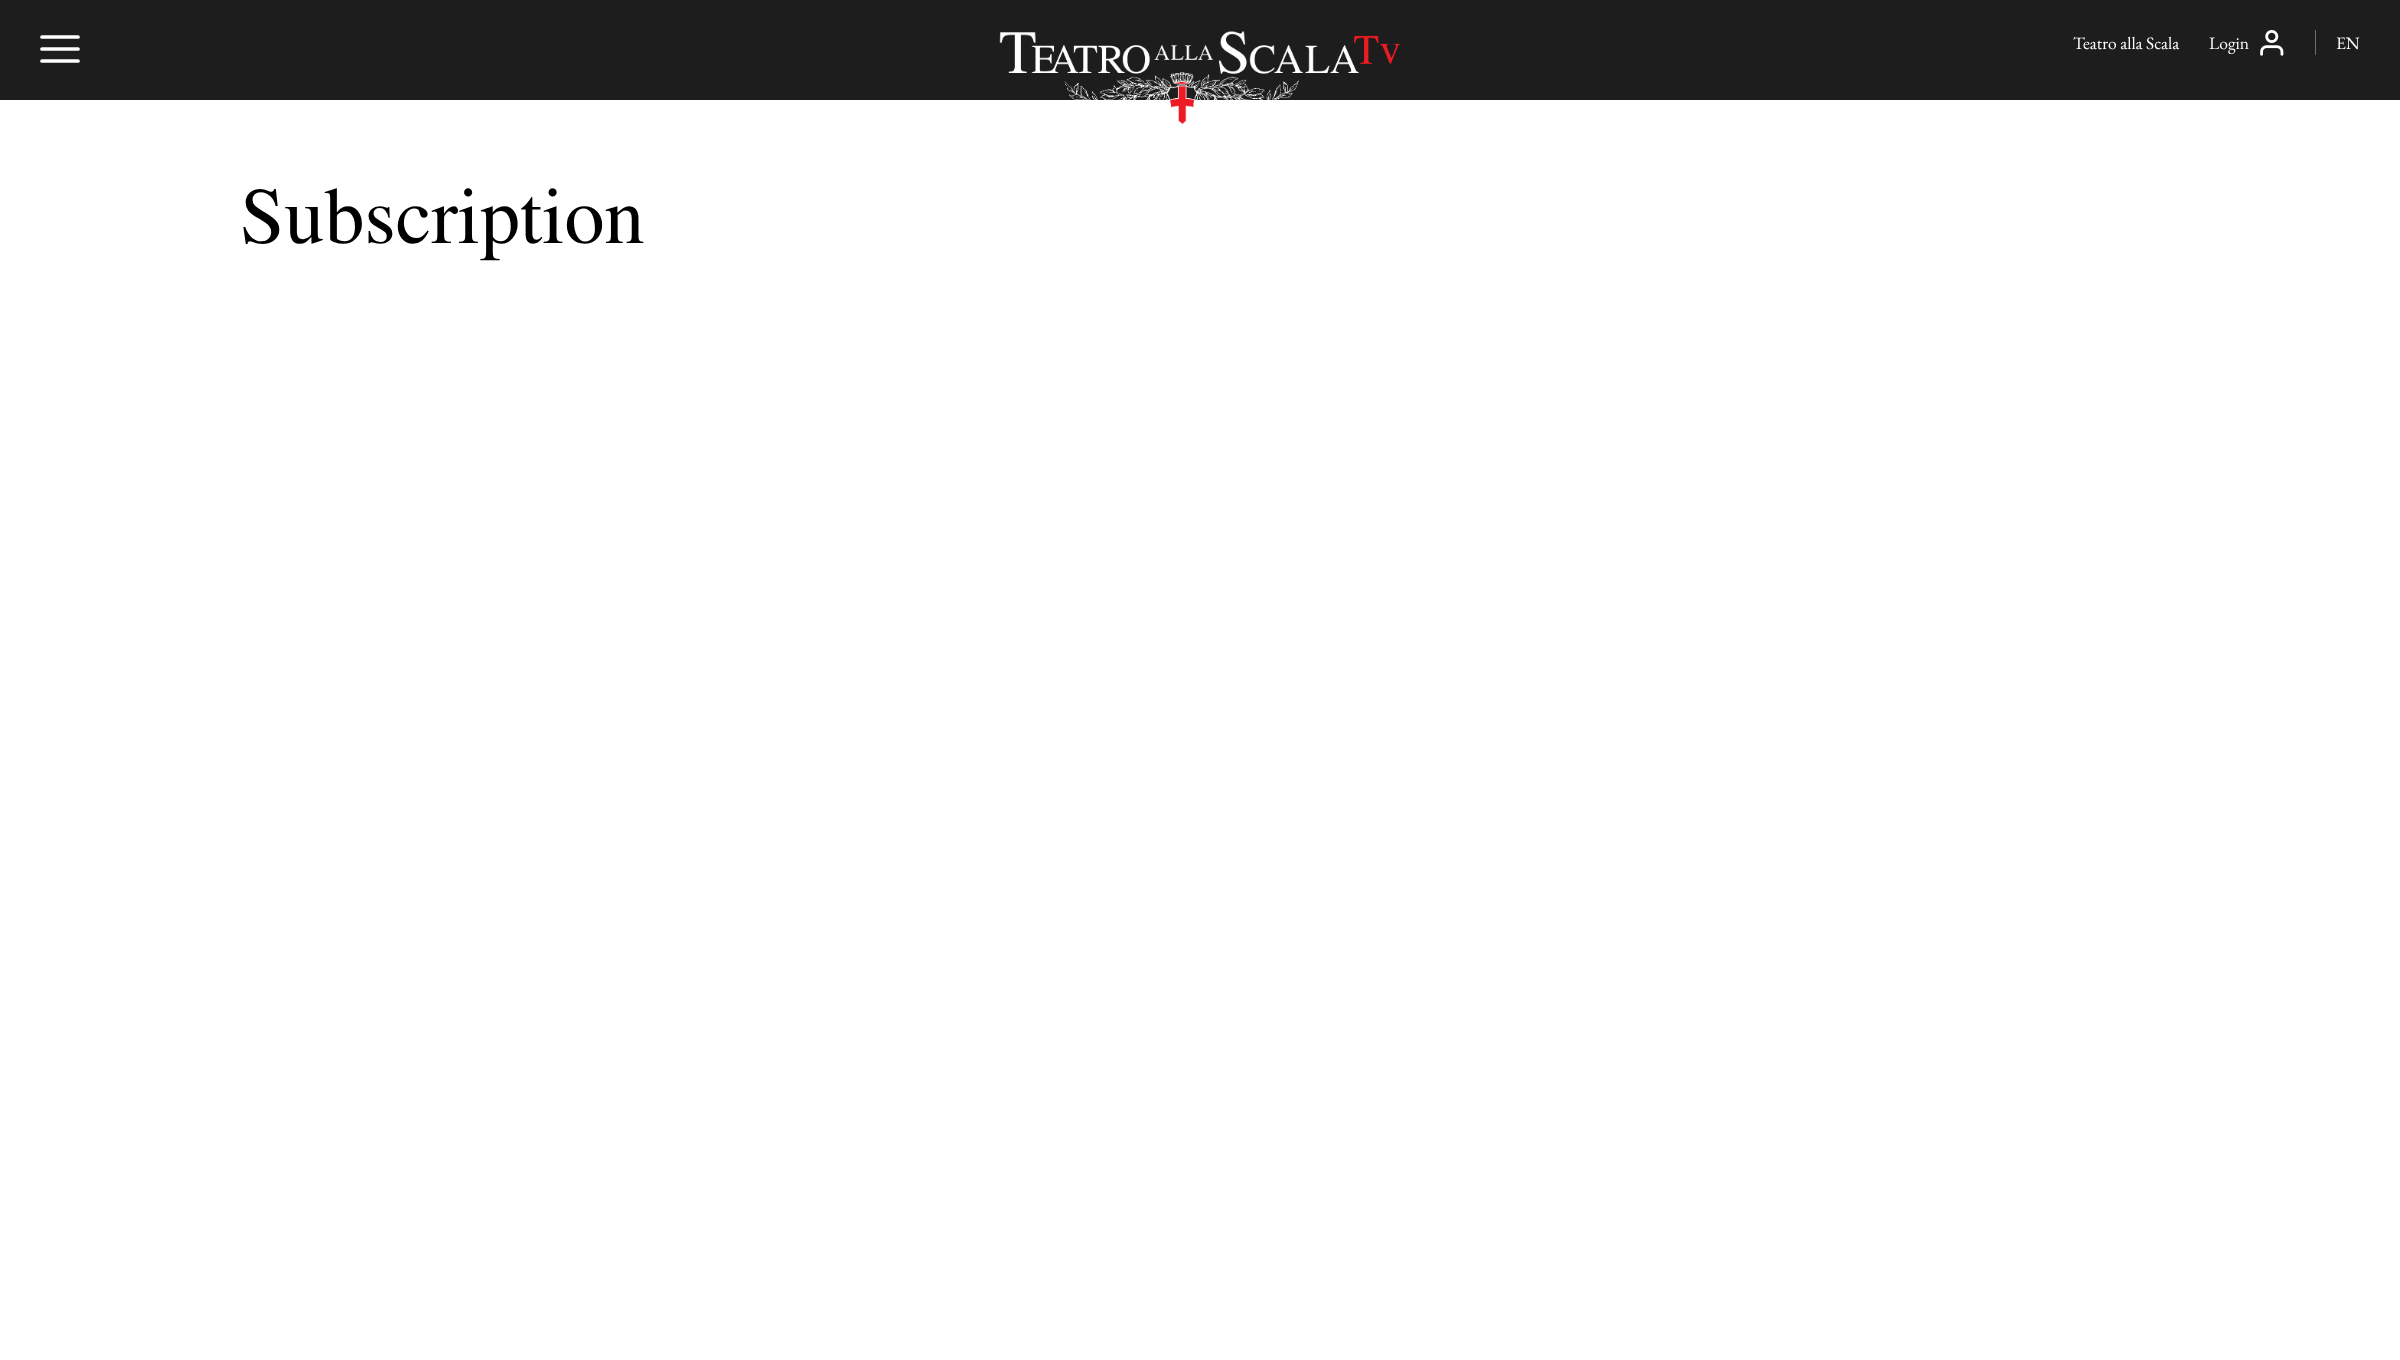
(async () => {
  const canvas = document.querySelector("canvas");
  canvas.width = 2400;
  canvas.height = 1360;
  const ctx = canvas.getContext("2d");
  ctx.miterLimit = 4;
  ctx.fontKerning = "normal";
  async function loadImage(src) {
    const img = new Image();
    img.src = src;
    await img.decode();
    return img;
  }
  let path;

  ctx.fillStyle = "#ffffff";
  ctx.fillRect(0, 0, 2400, 1360);
  ctx.fillStyle = "#1d1d1d";
  ctx.fillRect(0, 0, 2400, 100);
  path = new Path2D("M42 49H78M42 37H78M42 61H78");
  ctx.strokeStyle = "#ffffff";
  ctx.lineWidth = 3.7;
  ctx.lineCap = "round";
  ctx.lineJoin = "round";
  ctx.stroke(path);
  ctx.drawImage(await loadImage("img/1.png"), 999, 31, 401, 94);
  ctx.drawImage(await loadImage("img/2.png"), 2260, 30, 24, 26);
  ctx.fillStyle = "#6c6c6c";
  ctx.fillRect(2315, 30, 1, 25);
  ctx.font = "17.5px EB Garamond";
  ctx.fillStyle = "#ffffff";
  for (const [text, x, y] of [
    ["Teatro alla Scala", 2073, 49],
    ["Login", 2209, 49],
    ["EN", 2336, 49],
  ]) {
    ctx.fillText(text, x, y);
  }
  ctx.font = "80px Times";
  ctx.fillStyle = "#000000";
  ctx.fillText("Subscription", 240, 243);
})();
